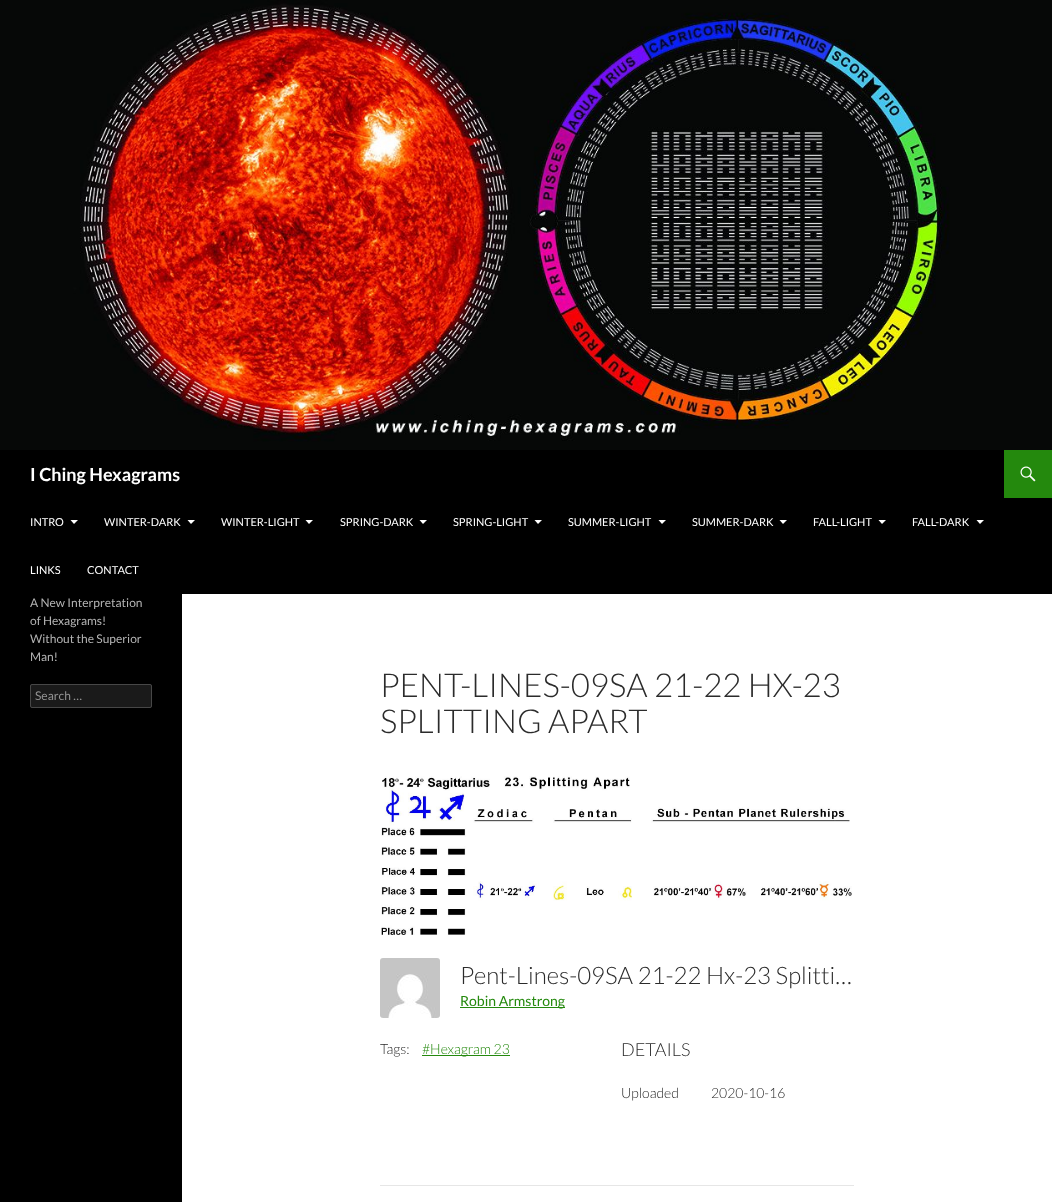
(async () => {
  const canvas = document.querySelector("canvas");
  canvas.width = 1052;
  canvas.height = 1202;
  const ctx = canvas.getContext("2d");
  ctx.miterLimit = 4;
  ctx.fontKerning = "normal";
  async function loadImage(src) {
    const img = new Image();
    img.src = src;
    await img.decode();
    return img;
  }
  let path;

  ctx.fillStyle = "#ffffff";
  ctx.fillRect(0, 0, 1052, 1202);
  ctx.drawImage(await loadImage("img/1.png"), 0, 0, 1052, 450);
  ctx.fillStyle = "#000000";
  ctx.fillRect(0, 450, 1052, 144);
  ctx.fillStyle = "#24890d";
  ctx.fillRect(1004, 450, 48, 48);
  ctx.drawImage(await loadImage("img/2.png"), 1020, 466, 16, 16);
  ctx.fillStyle = "#ffffff";
  path = new Path2D("M70.5 520L74 524L78 520Z");
  ctx.fill(path);
  path = new Path2D("M187.5 520L191 524L195 520Z");
  ctx.fill(path);
  path = new Path2D("M305.5 520L309 524L313 520Z");
  ctx.fill(path);
  path = new Path2D("M419.5 520L423 524L427 520Z");
  ctx.fill(path);
  path = new Path2D("M534.5 520L538 524L542 520Z");
  ctx.fill(path);
  path = new Path2D("M658.5 520L662 524L666 520Z");
  ctx.fill(path);
  path = new Path2D("M779.5 520L783 524L787 520Z");
  ctx.fill(path);
  path = new Path2D("M878.5 520L882 524L886 520Z");
  ctx.fill(path);
  path = new Path2D("M976.5 520L980 524L984 520Z");
  ctx.fill(path);
  ctx.fillStyle = "#000000";
  ctx.fillRect(0, 594, 182, 608);
  ctx.fillStyle = "#1a1a1a";
  ctx.beginPath();
  ctx.roundRect(30, 684, 122, 24, 2);
  ctx.fill();
  ctx.beginPath();
  ctx.roundRect(30.5, 684.5, 121, 23, 1.5);
  ctx.strokeStyle = "rgba(255, 255, 255, 0.2)";
  ctx.stroke();
  ctx.drawImage(await loadImage("img/3.png"), 381, 776, 471, 159);
  ctx.drawImage(await loadImage("img/4.png"), 380, 958, 60, 60);
  for (const [x, y, w, h, color] of [
    [460, 1007, 105, 1, "#24890d"],
    [422, 1055, 88, 1, "#24890d"],
    [380, 1185, 474, 1, "#e6e6e6"],
  ]) {
    ctx.fillStyle = color;
    ctx.fillRect(x, y, w, h);
  }
  ctx.font = "bold 18px Lato";
  ctx.fillStyle = "#ffffff";
  ctx.fillText("I Ching Hexagrams", 30, 481);
  ctx.font = "11px Lato";
  for (const [text, x, y] of [
    ["INTRO", 30, 526],
    ["WINTER-DARK", 104, 526],
    ["WINTER-LIGHT", 221, 526],
    ["SPRING-DARK", 340, 526],
    ["SPRING-LIGHT", 453, 526],
    ["SUMMER-LIGHT", 568, 526],
    ["SUMMER-DARK", 692, 526],
    ["FALL-LIGHT", 813, 526],
    ["FALL-DARK", 912, 526],
    ["LINKS", 30, 574],
    ["CONTACT", 87, 574],
  ]) {
    ctx.fillText(text, x, y);
  }
  ctx.font = "12px Lato";
  ctx.fillStyle = "#b3b3b3";
  for (const [text, x, y] of [
    ["A New Interpretation", 30, 607],
    ["of Hexagrams!", 30, 625],
    ["Without the Superior", 30, 643],
    ["Man!", 30, 661],
  ]) {
    ctx.fillText(text, x, y);
  }
  ctx.fillStyle = "#939393";
  ctx.fillText("Search …", 35, 700);
  ctx.font = "300 33px Lato";
  ctx.fillStyle = "#2b2b2b";
  ctx.fillText("PENT-LINES-09SA 21-22 HX-23", 380, 697);
  ctx.fillText("SPLITTING APART", 380, 733);
  ctx.font = "300 24px Lato";
  ctx.fillText("Pent-Lines-09SA 21-22 Hx-23 Splitti…", 460, 984);
  ctx.font = "14px Lato";
  ctx.fillStyle = "#24890d";
  ctx.fillText("Robin Armstrong", 460, 1006);
  ctx.font = "300 14px Lato";
  ctx.fillStyle = "#2b2b2b";
  ctx.fillText("Tags:", 380, 1054);
  ctx.fillStyle = "#24890d";
  ctx.fillText("#Hexagram 23", 422, 1054);
  ctx.font = "300 18px Lato";
  ctx.fillStyle = "#2b2b2b";
  ctx.fillText("DETAILS", 621, 1056);
  ctx.font = "300 14px Lato";
  ctx.fillText("Uploaded", 621, 1098);
  ctx.fillText("2020-10-16", 711, 1098);
})();
